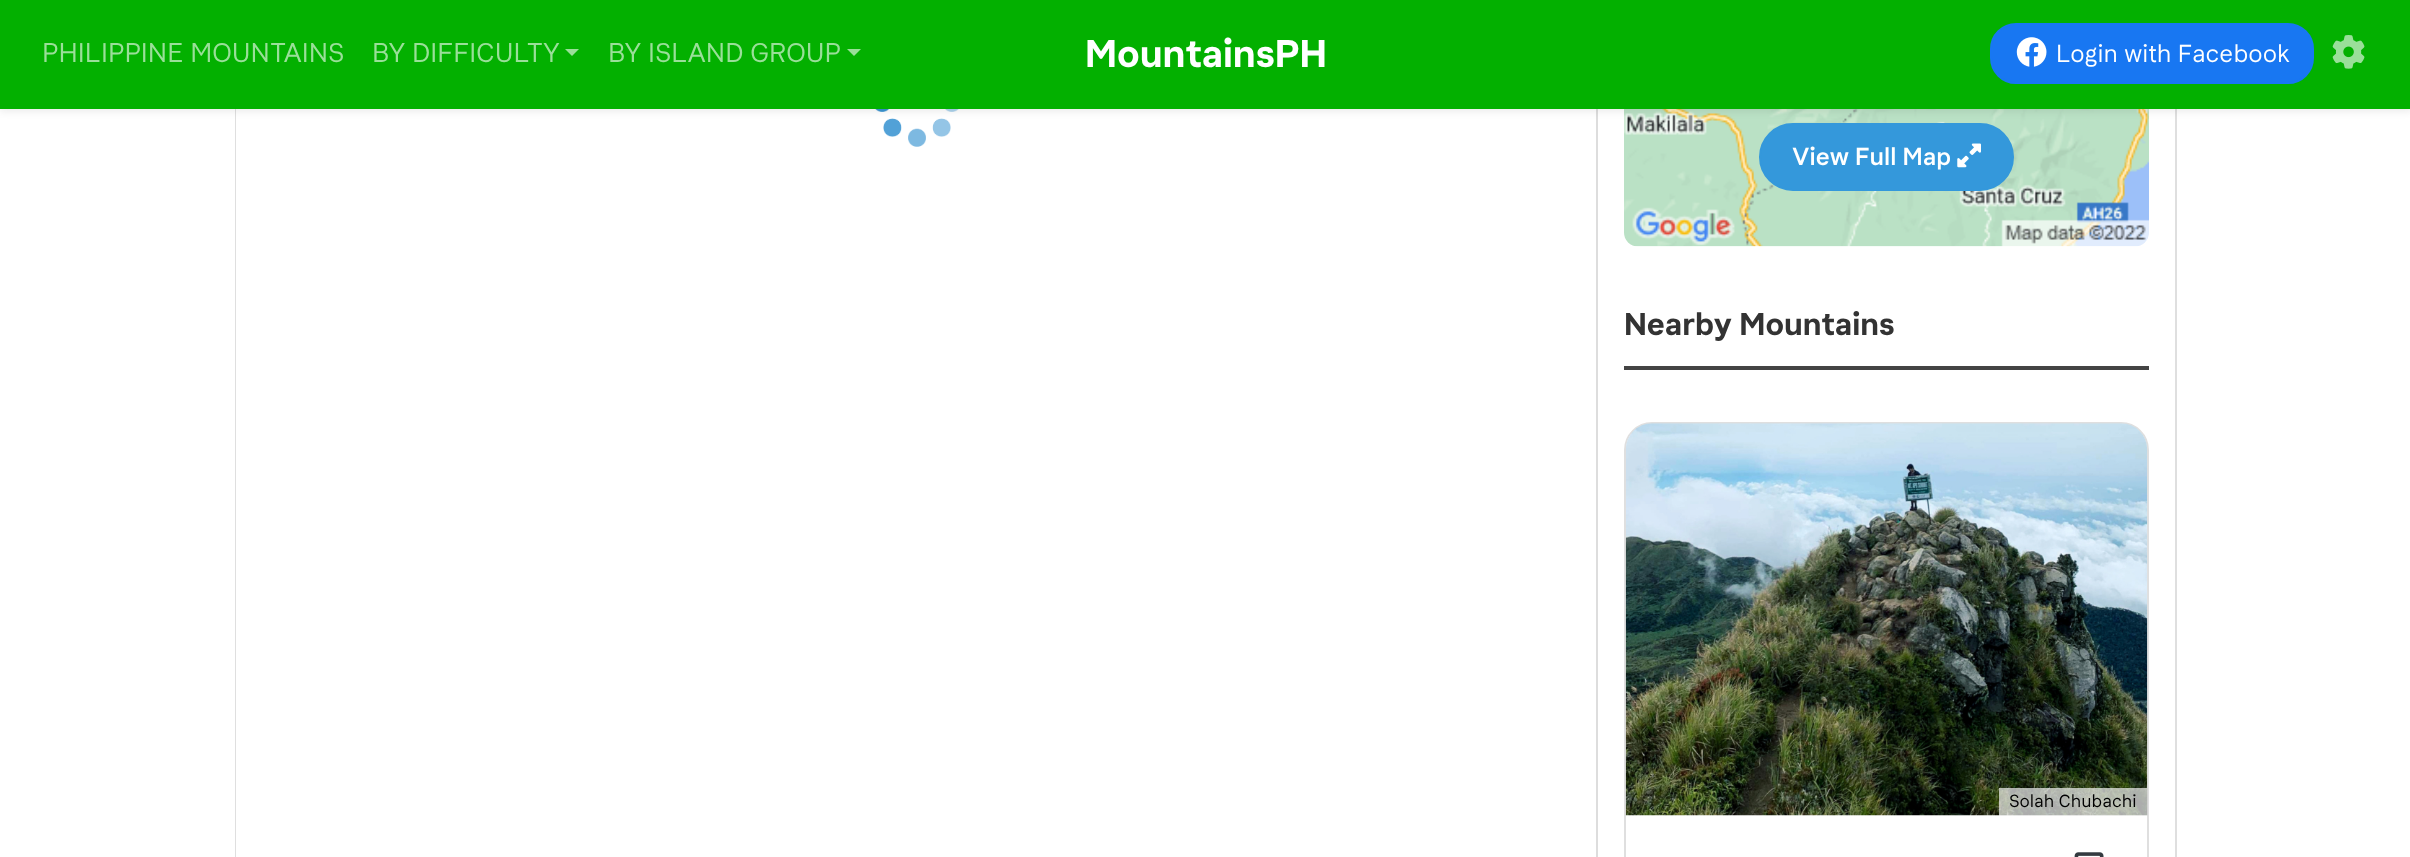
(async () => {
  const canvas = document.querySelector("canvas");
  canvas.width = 2410;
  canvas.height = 857;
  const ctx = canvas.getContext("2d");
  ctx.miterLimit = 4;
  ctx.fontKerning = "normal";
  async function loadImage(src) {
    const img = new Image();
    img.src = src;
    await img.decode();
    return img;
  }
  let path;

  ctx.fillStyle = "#ffffff";
  ctx.fillRect(0, 0, 2410, 857);
  ctx.strokeStyle = "#dfdfdf";
  ctx.lineWidth = 2;
  ctx.strokeRect(236, -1, 1940, 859);
  ctx.fillRect(236, 109, 1, 748);
  ctx.drawImage(await loadImage("img/3.png"), 875, 109, 84, 38);
  ctx.fillStyle = "#dddddd";
  ctx.fillRect(1596, 109, 2, 748);
  ctx.drawImage(await loadImage("img/4.png"), 1624, 109, 525, 138);
  ctx.fillStyle = "#3498db";
  ctx.beginPath();
  ctx.roundRect(1760, 124, 253, 66, 33);
  ctx.fill();
  ctx.strokeStyle = "#3498db";
  ctx.stroke();
  ctx.fillStyle = "rgba(0, 0, 0, 0.07)";
  ctx.filter = "blur(3.5px)";
  ctx.beginPath();
  ctx.rect(0, 4, 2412, 108);
  ctx.fill();
  ctx.filter = "none";
  ctx.fillStyle = "#03b000";
  ctx.fillRect(0, 0, 2410, 109);
  ctx.drawImage(await loadImage("img/1.png"), 2332, 35, 33, 34);
  ctx.fillStyle = "#9adf99";
  path = new Path2D("M565 49H579L572 56Z");
  ctx.fill(path);
  path = new Path2D("M847 49H861L854 56Z");
  ctx.fill(path);
  ctx.fillStyle = "#1877f2";
  ctx.beginPath();
  ctx.roundRect(1991, 24, 322, 59, 25);
  ctx.fill();
  ctx.strokeStyle = "#1877f2";
  ctx.stroke();
  ctx.drawImage(await loadImage("img/2.png"), 2016, 37, 31, 30);
  ctx.drawImage(await loadImage("img/5.png"), 1957, 143, 24, 25);
  ctx.fillStyle = "#444444";
  ctx.fillRect(1624, 366, 525, 4);
  ctx.beginPath();
  ctx.roundRect(1625, 423, 523, 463, 27);
  ctx.strokeStyle = "#dfdfdf";
  ctx.stroke();
  ctx.drawImage(await loadImage("img/6.png"), 1625, 423, 523, 393);
  ctx.fillStyle = "rgba(245, 245, 245, 0.7)";
  ctx.fillRect(1999, 788, 148, 28);
  ctx.drawImage(await loadImage("img/7.png"), 2074, 852, 30, 5);
  ctx.font = "bold 38.5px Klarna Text";
  ctx.fillStyle = "#ffffff";
  ctx.fillText("MountainsPH", 1085, 67);
  ctx.font = "27px Klarna Text";
  ctx.fillStyle = "#9adf99";
  for (const [text, x, y] of [
    ["PHILIPPINE MOUNTAINS", 42, 62],
    ["BY DIFFICULTY", 372, 62],
    ["BY ISLAND GROUP", 608, 62],
  ]) {
    ctx.fillText(text, x, y);
  }
  ctx.font = "24.5px Klarna Text";
  ctx.fillStyle = "#ffffff";
  ctx.fillText("Login with Facebook", 2056, 62);
  ctx.font = "500 24.5px Klarna Text";
  ctx.fillText("View Full Map", 1792, 165);
  ctx.font = "bold 31.5px Klarna Text";
  ctx.fillStyle = "#333333";
  ctx.fillText("Nearby Mountains", 1624, 335);
  ctx.font = "17.5px Klarna Text";
  ctx.fillStyle = "#000000";
  ctx.fillText("Solah Chubachi", 2009, 807);
})();
